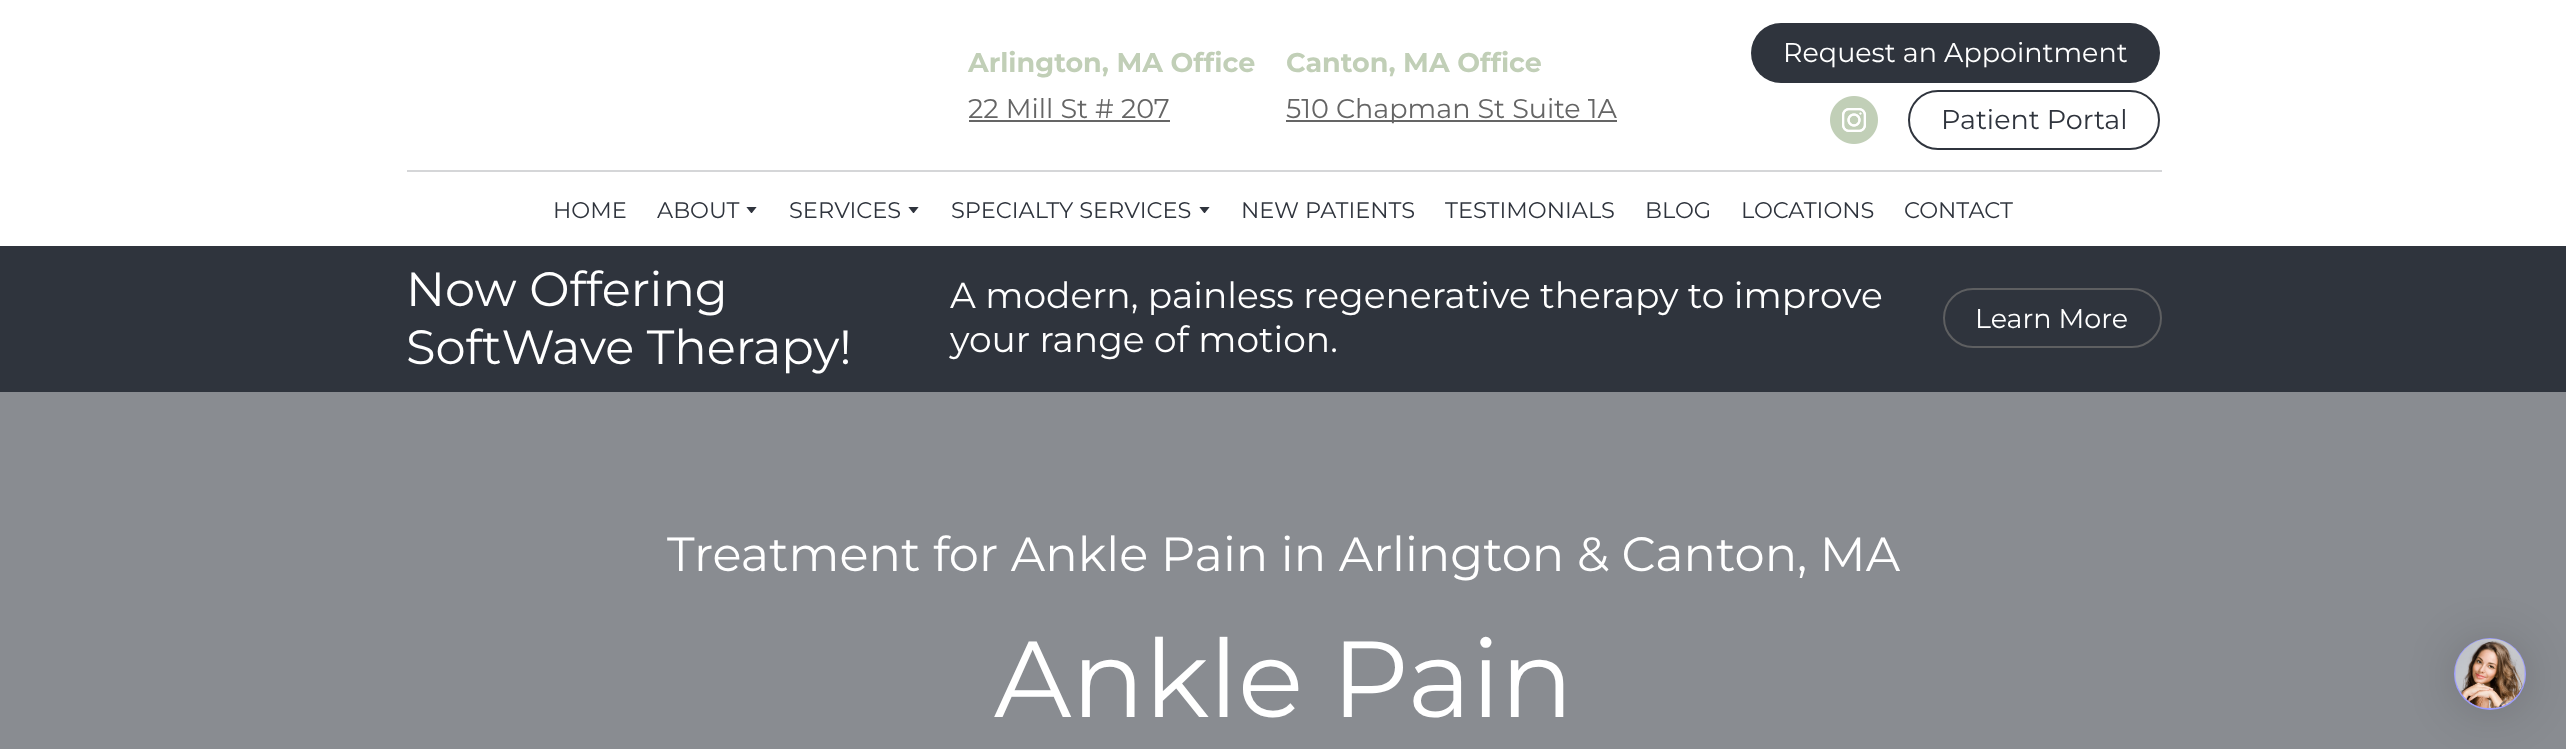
(async () => {
  const canvas = document.querySelector("canvas");
  canvas.width = 2566;
  canvas.height = 749;
  const ctx = canvas.getContext("2d");
  ctx.miterLimit = 4;
  ctx.fontKerning = "normal";
  async function loadImage(src) {
    const img = new Image();
    img.src = src;
    await img.decode();
    return img;
  }
  let path;

  ctx.fillStyle = "#898c91";
  ctx.fillRect(0, 0, 2566, 749);
  for (const [x, y, w, h, color] of [
    [0, 0, 2566, 246, "#ffffff"],
    [969, 120, 201, 2, "#656565"],
    [1286, 120, 331, 2, "#656565"],
  ]) {
    ctx.fillStyle = color;
    ctx.fillRect(x, y, w, h);
  }
  ctx.fillStyle = "#2f343d";
  ctx.beginPath();
  ctx.roundRect(1751, 23, 409, 60, 30);
  ctx.fill();
  ctx.drawImage(await loadImage("img/1.png"), 1830, 96, 48, 48);
  ctx.beginPath();
  ctx.roundRect(1909, 91, 250, 58, 29);
  ctx.strokeStyle = "#2f343d";
  ctx.lineWidth = 2;
  ctx.stroke();
  ctx.fillStyle = "#d5d6d8";
  ctx.fillRect(407, 170, 1755, 2);
  ctx.save();
  ctx.beginPath();
  ctx.rect(744, 207, 15, 6);
  ctx.clip();
  ctx.fillStyle = "#2f343d";
  path = new Path2D("M751.5 213.5L757 206.5H746Z");
  ctx.fill(path);
  ctx.restore();
  ctx.save();
  ctx.beginPath();
  ctx.rect(906, 207, 15, 6);
  ctx.clip();
  ctx.fillStyle = "#2f343d";
  path = new Path2D("M913.5 213.5L919 206.5H908Z");
  ctx.fill(path);
  ctx.restore();
  ctx.save();
  ctx.beginPath();
  ctx.rect(1197, 207, 14, 6);
  ctx.clip();
  ctx.fillStyle = "#2f343d";
  path = new Path2D("M1204.5 213.5L1210 206.5H1199Z");
  ctx.fill(path);
  ctx.restore();
  ctx.fillStyle = "#2f343d";
  ctx.fillRect(0, 246, 2566, 146);
  ctx.beginPath();
  ctx.roundRect(1944, 289, 217, 58, 29);
  ctx.strokeStyle = "#5e5f61";
  ctx.stroke();
  ctx.fillStyle = "rgba(0, 0, 0, 0.16)";
  ctx.filter = "blur(24px)";
  ctx.beginPath();
  ctx.roundRect(2454, 641, 72, 72, 36);
  ctx.fill();
  ctx.filter = "none";
  ctx.fillStyle = "#9e9eff";
  ctx.beginPath();
  ctx.arc(2490, 674, 36, 0, Math.PI * 2);
  ctx.fill();
  ctx.drawImage(await loadImage("img/2.png"), 2455, 639, 70, 69);
  ctx.font = "bold 27px Montserrat";
  ctx.fillStyle = "#c1cfb7";
  ctx.fillText("Arlington, MA Office", 968, 72);
  ctx.font = "27px Montserrat";
  ctx.fillStyle = "#656565";
  ctx.fillText("22 Mill St # 207", 968, 118);
  ctx.font = "bold 27px Montserrat";
  ctx.fillStyle = "#c1cfb7";
  ctx.fillText("Canton, MA Office", 1286, 72);
  ctx.font = "27px Montserrat";
  ctx.fillStyle = "#656565";
  ctx.fillText("510 Chapman St Suite 1A", 1286, 118);
  ctx.fillStyle = "#ffffff";
  ctx.fillText("Request an Appointment", 1783, 62);
  ctx.fillStyle = "#2f343d";
  ctx.fillText("Patient Portal", 1941, 129);
  ctx.font = "22.5px Montserrat";
  for (const [text, x, y] of [
    ["HOME", 553, 218],
    ["ABOUT", 657, 218],
    ["SERVICES", 789, 218],
    ["SPECIALTY SERVICES", 951, 218],
    ["NEW PATIENTS", 1241, 218],
    ["TESTIMONIALS", 1445, 218],
    ["BLOG", 1645, 218],
    ["LOCATIONS", 1741, 218],
    ["CONTACT", 1904, 218],
  ]) {
    ctx.fillText(text, x, y);
  }
  ctx.font = "48px Montserrat";
  ctx.fillStyle = "#ffffff";
  ctx.fillText("Now Offering", 406, 306);
  ctx.fillText("SoftWave Therapy!", 406, 364);
  ctx.font = "36px Montserrat";
  ctx.fillText("A modern, painless regenerative therapy to improve", 950, 308);
  ctx.fillText("your range of motion.", 950, 352);
  ctx.font = "27px Montserrat";
  ctx.fillText("Learn More", 1975, 328);
  ctx.font = "48px Montserrat";
  ctx.fillText("Treatment for Ankle Pain in Arlington & Canton, MA", 667, 571);
  ctx.font = "108px Montserrat";
  ctx.fillText("Ankle Pain", 994, 717);
})();
